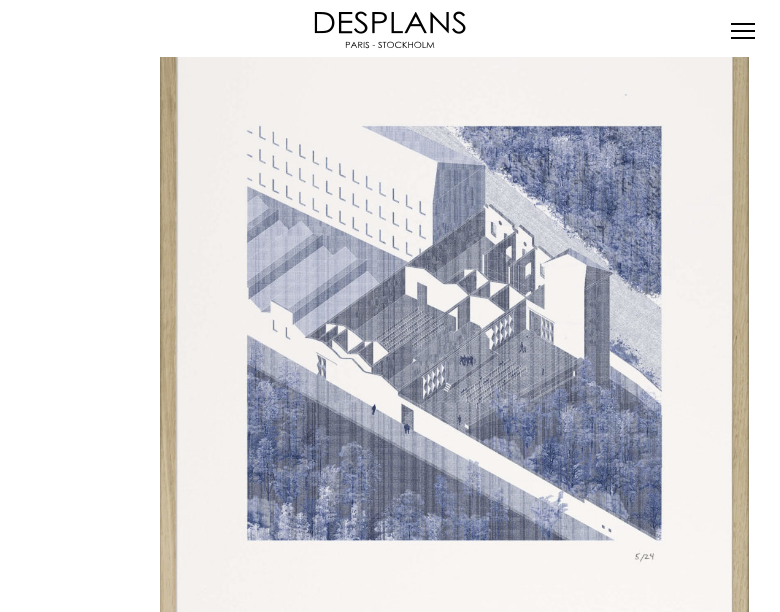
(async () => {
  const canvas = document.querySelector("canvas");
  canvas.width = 780;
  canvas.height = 612;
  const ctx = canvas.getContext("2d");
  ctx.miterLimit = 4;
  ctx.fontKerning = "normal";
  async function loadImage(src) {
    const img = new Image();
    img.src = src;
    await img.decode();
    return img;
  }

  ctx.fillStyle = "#ffffff";
  ctx.fillRect(0, 0, 780, 612);
  ctx.drawImage(await loadImage("img/1.png"), 314, 11, 152, 38);
  ctx.drawImage(await loadImage("img/2.png"), 160, 57, 589, 555);
  for (const [x, y, w, h, color] of [
    [731, 23, 24, 2, "#000000"],
    [731, 30, 24, 2, "#000000"],
    [731, 37, 24, 2, "#000000"],
  ]) {
    ctx.fillStyle = color;
    ctx.fillRect(x, y, w, h);
  }
})();
